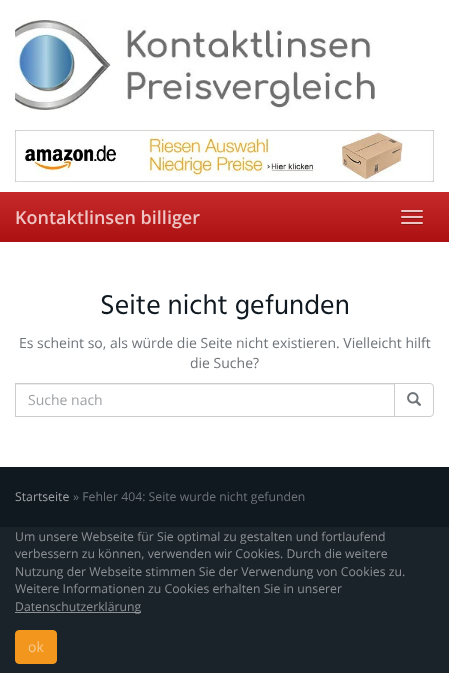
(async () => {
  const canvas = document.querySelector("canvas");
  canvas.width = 449;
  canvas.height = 673;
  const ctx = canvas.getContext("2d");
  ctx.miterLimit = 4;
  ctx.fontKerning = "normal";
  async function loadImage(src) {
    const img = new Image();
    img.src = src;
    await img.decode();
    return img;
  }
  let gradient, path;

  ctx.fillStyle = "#1b232a";
  ctx.fillRect(0, 0, 449, 673);
  ctx.fillStyle = "#ffffff";
  ctx.fillRect(0, 0, 449, 192);
  ctx.drawImage(await loadImage("img/1.png"), 15, 20, 360, 90);
  ctx.drawImage(await loadImage("img/2.png"), 15, 130, 419, 52);
  gradient = ctx.createLinearGradient(225, 192, 225, 242);
  gradient.addColorStop(0, "#c62a2a");
  gradient.addColorStop(1, "#ac1111");
  ctx.fillStyle = gradient;
  ctx.fillRect(0, 192, 449, 50);
  ctx.fillStyle = "#8c1818";
  path = new Path2D("M401 211.5C400 213.5 403 213 405.5 213H418.5C421 213 424 213.5 423 211.5L422 212H402Z");
  ctx.fill(path);
  ctx.fillStyle = "#efc4c4";
  ctx.beginPath();
  ctx.roundRect(401, 210, 22, 2, 1);
  ctx.fill();
  ctx.fillStyle = "#8a1616";
  path = new Path2D("M401 217.5C400 219.5 403 219 405.5 219H418.5C421 219 424 219.5 423 217.5L422 218H402Z");
  ctx.fill(path);
  ctx.fillStyle = "#efc4c4";
  ctx.beginPath();
  ctx.roundRect(401, 216, 22, 2, 1);
  ctx.fill();
  ctx.fillStyle = "#881414";
  path = new Path2D("M401 223.5C400 225.5 403 225 405.5 225H418.5C421 225 424 225.5 423 223.5L422 224H402Z");
  ctx.fill(path);
  ctx.fillStyle = "#efc4c4";
  ctx.beginPath();
  ctx.roundRect(401, 222, 22, 2, 1);
  ctx.fill();
  ctx.fillStyle = "#ffffff";
  ctx.fillRect(0, 242, 449, 225);
  ctx.fillStyle = "#ececec";
  ctx.fillRect(16, 384, 378, 1);
  ctx.strokeStyle = "#cccccc";
  ctx.strokeRect(15.5, 383.5, 379, 33);
  ctx.fillStyle = "#ffffff";
  ctx.beginPath();
  ctx.roundRect(394.5, 383.5, 39, 33, [0, 3.5, 3.5, 0]);
  ctx.fill();
  ctx.stroke();
  ctx.drawImage(await loadImage("img/3.png"), 407, 392, 14, 14);
  ctx.fillStyle = "#101820";
  ctx.fillRect(0, 467, 449, 60);
  ctx.fillStyle = "#8d9195";
  ctx.fillRect(15, 612, 126, 1);
  ctx.fillStyle = "#f3961d";
  ctx.beginPath();
  ctx.roundRect(15.5, 630.5, 41, 33, 3.5);
  ctx.fill();
  ctx.strokeStyle = "#f3961d";
  ctx.stroke();
  ctx.font = "600 18px Open Sans";
  ctx.fillStyle = "#efc4c4";
  ctx.fillText("Kontaktlinsen billiger", 15, 224);
  ctx.font = "28px Hind";
  ctx.fillStyle = "#101820";
  ctx.fillText("Seite nicht gefunden", 100, 314);
  ctx.font = "14px Open Sans";
  ctx.fillStyle = "#6f7479";
  ctx.fillText("Es scheint so, als würde die Seite nicht existieren. Vielleicht hilft", 19, 348);
  ctx.fillText("die Suche?", 190, 368);
  ctx.fillStyle = "#9fa2a5";
  ctx.fillText("Suche nach", 28, 405);
  ctx.font = "12.25px Open Sans";
  ctx.fillText("Startseite", 15, 501);
  ctx.fillStyle = "#6f7479";
  ctx.fillText("» Fehler 404: Seite wurde nicht gefunden", 73, 501);
  ctx.fillStyle = "#8d9195";
  for (const [text, x, y] of [
    ["Um unsere Webseite für Sie optimal zu gestalten und fortlaufend", 15, 541],
    ["verbessern zu können, verwenden wir Cookies. Durch die weitere", 15, 558],
    ["Nutzung der Webseite stimmen Sie der Verwendung von Cookies zu.", 15, 576],
    ["Weitere Informationen zu Cookies erhalten Sie in unserer", 15, 593],
    ["Datenschutzerklärung", 15, 611],
  ]) {
    ctx.fillText(text, x, y);
  }
  ctx.font = "14px Open Sans";
  ctx.fillStyle = "#f9cb8e";
  ctx.fillText("ok", 28, 652);
})();
